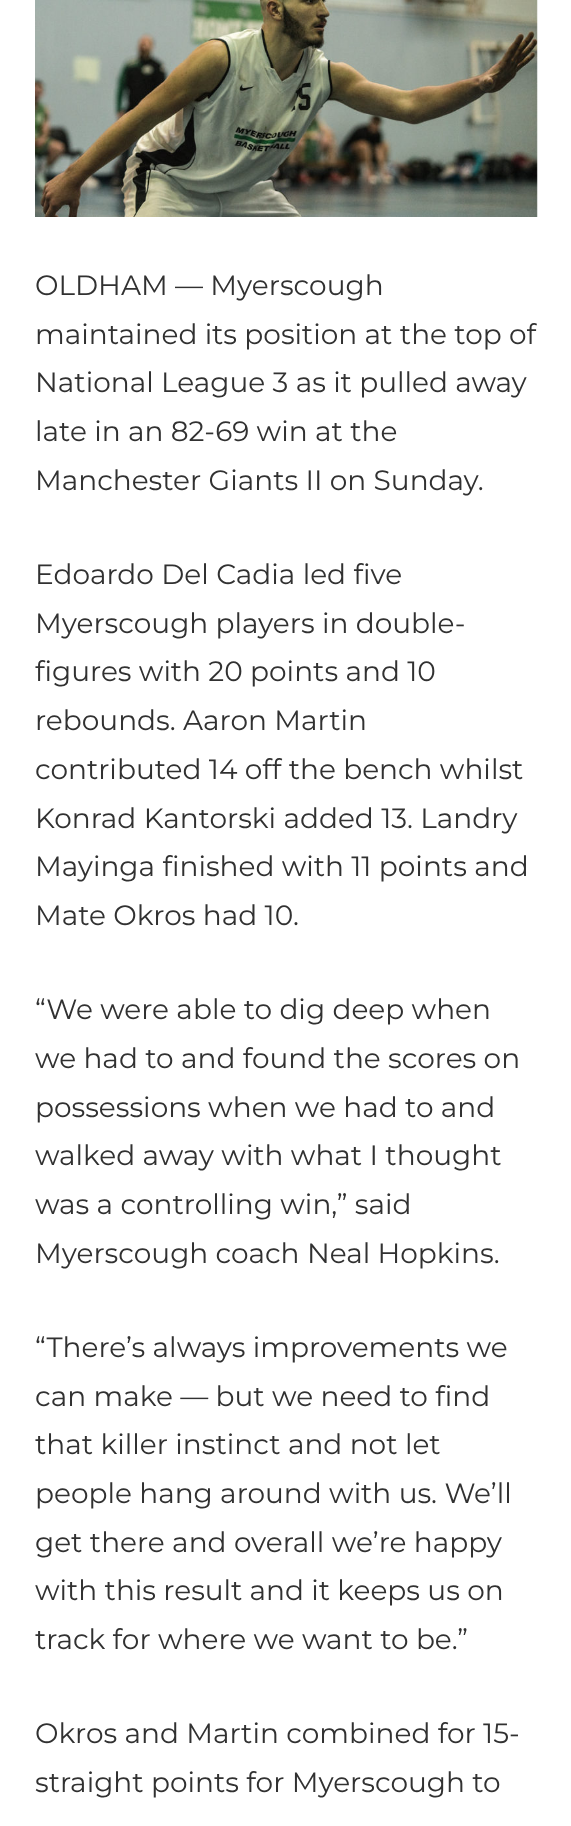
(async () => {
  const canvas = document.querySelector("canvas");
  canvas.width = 571;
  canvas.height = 1826;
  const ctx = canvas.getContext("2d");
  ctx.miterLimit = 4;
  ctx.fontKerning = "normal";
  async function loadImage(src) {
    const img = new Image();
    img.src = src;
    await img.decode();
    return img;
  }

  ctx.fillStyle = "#ffffff";
  ctx.fillRect(0, 0, 571, 1826);
  ctx.drawImage(await loadImage("img/1.png"), 35, 0, 503, 217);
  ctx.font = "28px Montserrat";
  ctx.fillStyle = "#313131";
  for (const [text, x, y] of [
    ["OLDHAM — Myerscough", 35, 295],
    ["maintained its position at the top of", 35, 344],
    ["National League 3 as it pulled away", 35, 392],
    ["late in an 82-69 win at the", 35, 441],
    ["Manchester Giants II on Sunday.", 35, 490],
    ["Edoardo Del Cadia led five", 35, 584],
    ["Myerscough players in double-", 35, 633],
    ["figures with 20 points and 10", 35, 681],
    ["rebounds. Aaron Martin", 35, 730],
    ["contributed 14 off the bench whilst", 35, 779],
    ["Konrad Kantorski added 13. Landry", 35, 828],
    ["Mayinga finished with 11 points and", 35, 876],
    ["Mate Okros had 10.", 35, 925],
    ["“We were able to dig deep when", 35, 1019],
    ["we had to and found the scores on", 35, 1068],
    ["possessions when we had to and", 35, 1117],
    ["walked away with what I thought", 35, 1165],
    ["was a controlling win,” said", 35, 1214],
    ["Myerscough coach Neal Hopkins.", 35, 1263],
    ["“There’s always improvements we", 35, 1357],
    ["can make — but we need to find", 35, 1406],
    ["that killer instinct and not let", 35, 1454],
    ["people hang around with us. We’ll", 35, 1503],
    ["get there and overall we’re happy", 35, 1552],
    ["with this result and it keeps us on", 35, 1600],
    ["track for where we want to be.”", 35, 1649],
    ["Okros and Martin combined for 15-", 35, 1743],
    ["straight points for Myerscough to", 35, 1792],
  ]) {
    ctx.fillText(text, x, y);
  }
})();
